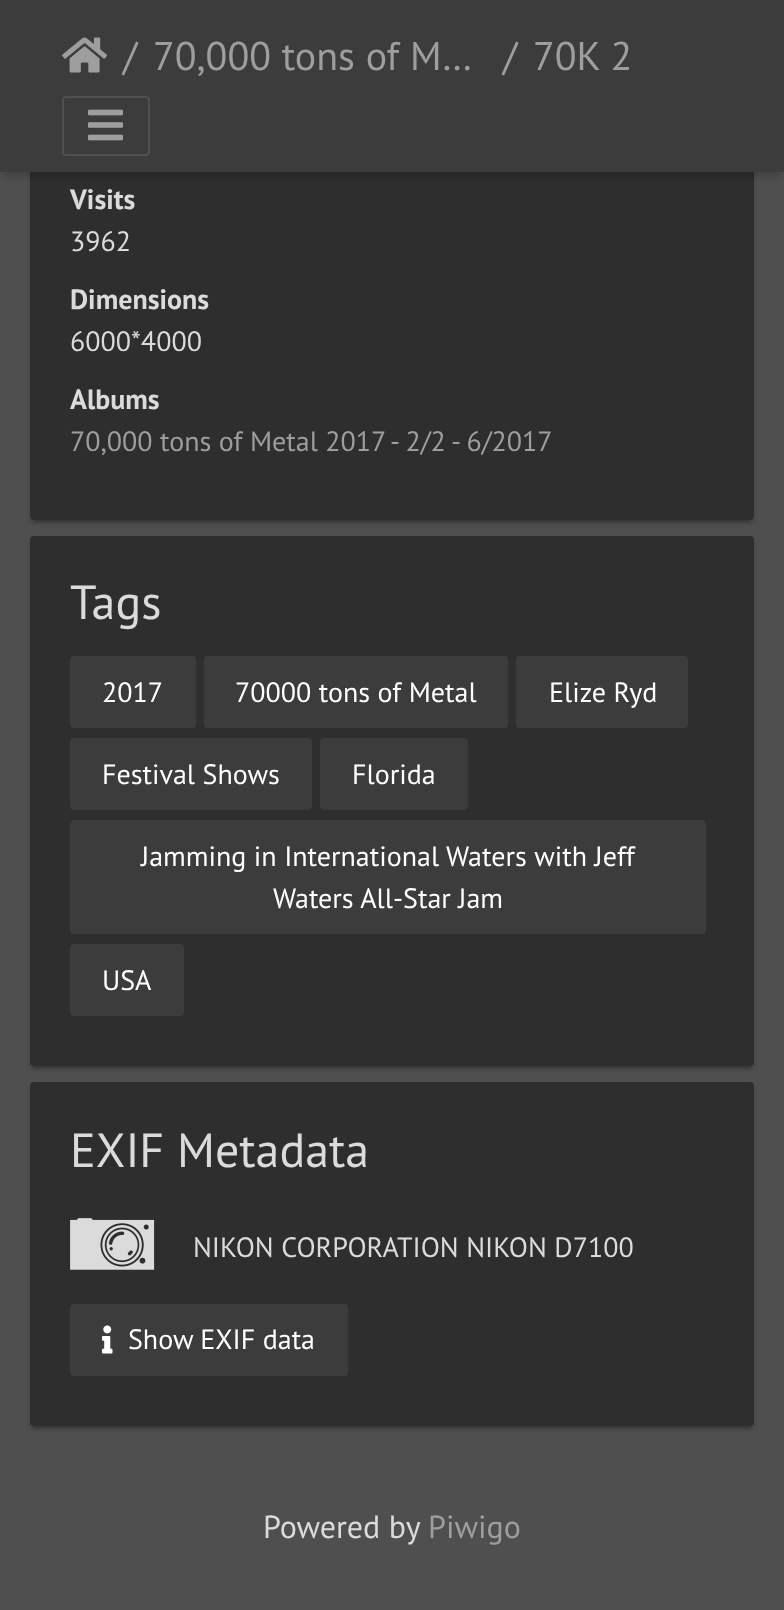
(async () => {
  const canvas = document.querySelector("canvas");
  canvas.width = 784;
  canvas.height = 1610;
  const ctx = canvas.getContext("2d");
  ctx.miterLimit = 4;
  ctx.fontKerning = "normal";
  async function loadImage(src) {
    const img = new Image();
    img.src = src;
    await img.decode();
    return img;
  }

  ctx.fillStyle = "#4f4f4f";
  ctx.fillRect(0, 0, 784, 1610);
  ctx.fillStyle = "rgba(0, 0, 0, 0.2)";
  ctx.filter = "blur(1px)";
  ctx.beginPath();
  ctx.rect(34, -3, 716, 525);
  ctx.fill();
  ctx.filter = "none";
  ctx.fillStyle = "rgba(0, 0, 0, 0.14)";
  ctx.filter = "blur(2px)";
  ctx.beginPath();
  ctx.roundRect(30, -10, 724, 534, 4);
  ctx.fill();
  ctx.filter = "none";
  ctx.fillStyle = "#2e2e2e";
  ctx.beginPath();
  ctx.roundRect(30, -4, 724, 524, 4);
  ctx.fill();
  ctx.fillStyle = "rgba(0, 0, 0, 0.2)";
  ctx.filter = "blur(5px)";
  ctx.beginPath();
  ctx.rect(2, 8, 780, 168);
  ctx.fill();
  ctx.filter = "none";
  ctx.fillStyle = "#3c3c3c";
  ctx.fillRect(0, 0, 784, 172);
  ctx.drawImage(await loadImage("img/1.png"), 62, 37, 45, 36);
  ctx.beginPath();
  ctx.roundRect(63, 97, 86, 58, 3);
  ctx.strokeStyle = "#505050";
  ctx.lineWidth = 2;
  ctx.stroke();
  ctx.drawImage(await loadImage("img/2.png"), 88, 109, 35, 32);
  ctx.fillStyle = "rgba(0, 0, 0, 0.2)";
  ctx.filter = "blur(1px)";
  ctx.beginPath();
  ctx.rect(34, 546, 716, 522);
  ctx.fill();
  ctx.filter = "none";
  ctx.fillStyle = "rgba(0, 0, 0, 0.14)";
  ctx.filter = "blur(2px)";
  ctx.beginPath();
  ctx.roundRect(30, 540, 724, 530, 4);
  ctx.fill();
  ctx.filter = "none";
  ctx.fillStyle = "#2e2e2e";
  ctx.beginPath();
  ctx.roundRect(30, 536, 724, 530, 4);
  ctx.fill();
  ctx.fillStyle = "#3c3c3c";
  ctx.beginPath();
  ctx.roundRect(70, 656, 126, 72, 4);
  ctx.fill();
  ctx.beginPath();
  ctx.roundRect(204, 656, 304, 72, 4);
  ctx.fill();
  ctx.beginPath();
  ctx.roundRect(516, 656, 172, 72, 4);
  ctx.fill();
  ctx.beginPath();
  ctx.roundRect(70, 738, 242, 72, 4);
  ctx.fill();
  ctx.beginPath();
  ctx.roundRect(320, 738, 148, 72, 4);
  ctx.fill();
  ctx.beginPath();
  ctx.roundRect(70, 820, 636, 114, 4);
  ctx.fill();
  ctx.beginPath();
  ctx.roundRect(70, 944, 114, 72, 4);
  ctx.fill();
  ctx.fillStyle = "rgba(0, 0, 0, 0.2)";
  ctx.filter = "blur(1px)";
  ctx.beginPath();
  ctx.rect(34, 1092, 716, 336);
  ctx.fill();
  ctx.filter = "none";
  ctx.fillStyle = "rgba(0, 0, 0, 0.14)";
  ctx.filter = "blur(2px)";
  ctx.beginPath();
  ctx.roundRect(30, 1086, 724, 344, 4);
  ctx.fill();
  ctx.filter = "none";
  ctx.fillStyle = "#2e2e2e";
  ctx.beginPath();
  ctx.roundRect(30, 1082, 724, 344, 4);
  ctx.fill();
  ctx.drawImage(await loadImage("img/3.png"), 70, 1218, 85, 52);
  ctx.fillStyle = "#3c3c3c";
  ctx.beginPath();
  ctx.roundRect(70, 1304, 278, 72, 4);
  ctx.fill();
  ctx.drawImage(await loadImage("img/4.png"), 102, 1325, 11, 29);
  ctx.font = "40px PT Sans";
  ctx.fillStyle = "#9e9e9e";
  for (const [text, x, y] of [
    ["/", 123, 70],
    ["70,000 tons of M…", 153, 70],
    ["/", 503, 70],
    ["70K 2", 533, 70],
  ]) {
    ctx.fillText(text, x, y);
  }
  ctx.font = "bold 28px PT Sans";
  ctx.fillStyle = "#dbdbdb";
  ctx.fillText("Visits", 70, 209);
  ctx.font = "28px PT Sans";
  ctx.fillText("3962", 70, 251);
  ctx.font = "bold 28px PT Sans";
  ctx.fillText("Dimensions", 70, 309);
  ctx.font = "28px PT Sans";
  ctx.fillText("6000*4000", 70, 351);
  ctx.font = "bold 28px PT Sans";
  ctx.fillText("Albums", 70, 409);
  ctx.font = "28px PT Sans";
  ctx.fillStyle = "#9e9e9e";
  ctx.fillText("70,000 tons of Metal 2017 - 2/2 - 6/2017", 70, 451);
  ctx.font = "48px PT Sans";
  ctx.fillStyle = "#dbdbdb";
  ctx.fillText("Tags", 70, 619);
  ctx.font = "28px PT Sans";
  ctx.fillStyle = "#ffffff";
  for (const [text, x, y] of [
    ["2017", 102, 702],
    ["70000 tons of Metal", 235, 702],
    ["Elize Ryd", 549, 702],
    ["Festival Shows", 102, 784],
    ["Florida", 352, 784],
    ["Jamming in International Waters with Jeff", 141, 866],
    ["Waters All-Star Jam", 273, 908],
    ["USA", 102, 990],
  ]) {
    ctx.fillText(text, x, y);
  }
  ctx.font = "48px PT Sans";
  ctx.fillStyle = "#dbdbdb";
  ctx.fillText("EXIF Metadata", 70, 1167);
  ctx.font = "28px PT Sans";
  ctx.fillText("NIKON CORPORATION NIKON D7100", 193, 1257);
  ctx.fillStyle = "#ffffff";
  ctx.fillText("Show EXIF data", 128, 1349);
  ctx.font = "32px PT Sans";
  ctx.fillStyle = "#dbdbdb";
  ctx.fillText("Powered by", 263, 1538);
  ctx.fillStyle = "#9e9e9e";
  ctx.fillText("Piwigo", 428, 1538);
})();
